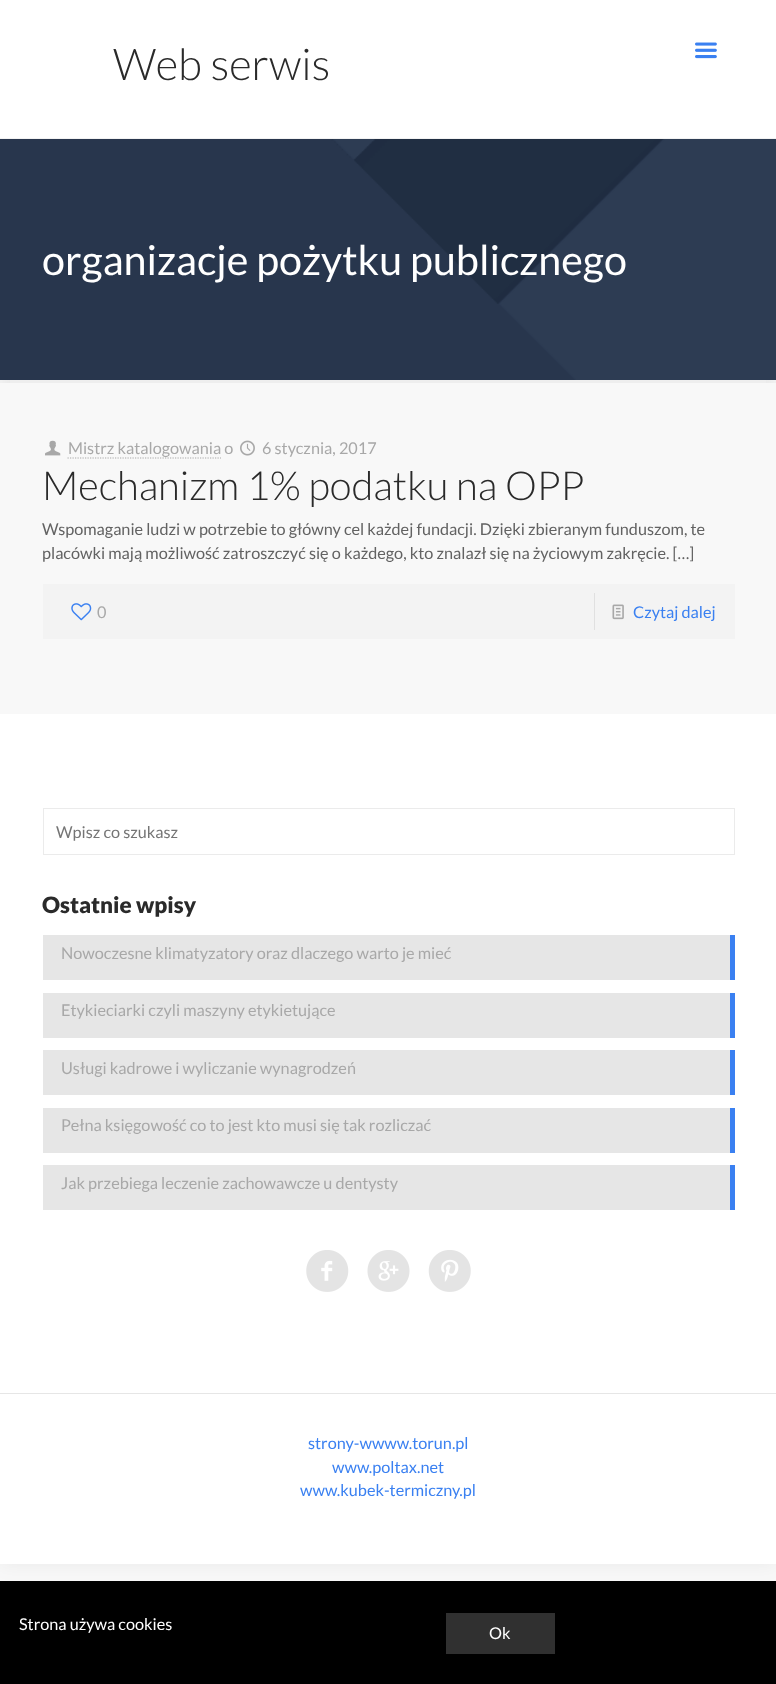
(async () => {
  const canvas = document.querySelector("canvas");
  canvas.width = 776;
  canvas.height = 1684;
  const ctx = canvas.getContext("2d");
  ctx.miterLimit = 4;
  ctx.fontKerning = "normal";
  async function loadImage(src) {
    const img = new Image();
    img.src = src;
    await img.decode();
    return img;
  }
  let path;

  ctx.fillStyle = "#f8f8f8";
  ctx.fillRect(0, 0, 776, 1684);
  ctx.fillStyle = "rgba(0, 0, 0, 0.06)";
  ctx.filter = "blur(9.5px)";
  ctx.beginPath();
  ctx.rect(0, 0, 776, 1564);
  ctx.fill();
  ctx.filter = "none";
  ctx.fillStyle = "#f8f8f8";
  ctx.fillRect(0, 383, 776, 331);
  ctx.drawImage(await loadImage("img/1.png"), 0, 139, 776, 241);
  ctx.fillStyle = "#ffffff";
  ctx.fillRect(0, 0, 776, 138);
  ctx.fillStyle = "#f2f2f2";
  ctx.fillRect(0, 138, 776, 1);
  ctx.drawImage(await loadImage("img/2.png"), 695, 42, 22, 17);
  ctx.fillStyle = "#eeeeee";
  ctx.fillRect(10, 380, 756, 3);
  ctx.drawImage(await loadImage("img/3.png"), 45, 440, 16, 16);
  path = new Path2D("M67.5 458H221");
  ctx.strokeStyle = "#a8a8a8";
  ctx.lineWidth = 1.2;
  ctx.setLineDash([1.25, 1.25]);
  ctx.stroke(path);
  ctx.drawImage(await loadImage("img/4.png"), 240, 440, 15, 16);
  ctx.fillStyle = "#f3f3f3";
  ctx.fillRect(43, 584, 692, 55);
  ctx.drawImage(await loadImage("img/5.png"), 71, 603, 21, 18);
  ctx.fillStyle = "#e0e0e0";
  ctx.fillRect(594, 593, 1, 37);
  ctx.drawImage(await loadImage("img/6.png"), 612, 604, 12, 16);
  ctx.fillStyle = "#ffffff";
  ctx.fillRect(0, 714, 776, 850);
  ctx.strokeStyle = "#ebebeb";
  ctx.lineWidth = 1;
  ctx.setLineDash([]);
  ctx.strokeRect(43.5, 808.5, 691, 46);
  for (const [x, y, w, h, color] of [
    [43, 935, 687, 45, "#e6e6e6"],
    [730, 935, 5, 45, "#3a80f1"],
    [43, 993, 687, 45, "#e6e6e6"],
    [730, 993, 5, 45, "#3a80f1"],
    [43, 1050, 687, 45, "#e6e6e6"],
    [730, 1050, 5, 45, "#3a80f1"],
    [43, 1108, 687, 45, "#e6e6e6"],
    [730, 1108, 5, 45, "#3a80f1"],
    [43, 1165, 687, 45, "#e6e6e6"],
    [730, 1165, 5, 45, "#3a80f1"],
  ]) {
    ctx.fillStyle = color;
    ctx.fillRect(x, y, w, h);
  }
  ctx.drawImage(await loadImage("img/7.png"), 306, 1250, 43, 42);
  ctx.drawImage(await loadImage("img/8.png"), 367, 1250, 43, 42);
  ctx.drawImage(await loadImage("img/9.png"), 428, 1250, 43, 42);
  for (const [x, y, w, h, color] of [
    [0, 1393, 776, 1, "#e6e6e6"],
    [0, 1581, 776, 103, "#000000"],
    [446, 1613, 109, 41, "#303030"],
  ]) {
    ctx.fillStyle = color;
    ctx.fillRect(x, y, w, h);
  }
  ctx.font = "300 43.75px Lato";
  ctx.fillStyle = "#2a2a2a";
  ctx.fillText("Web serwis", 113, 80);
  ctx.font = "41.25px Lato";
  ctx.fillStyle = "#ffffff";
  ctx.fillText("organizacje pożytku publicznego", 42, 275);
  ctx.font = "16.25px Lato";
  ctx.fillStyle = "#a8a8a8";
  ctx.fillText("Mistrz katalogowania o", 68, 454);
  ctx.fillText("6 stycznia, 2017", 262, 454);
  ctx.font = "300 40px Lato";
  ctx.fillStyle = "#2a2a2a";
  ctx.fillText("Mechanizm 1% podatku na OPP", 42, 500);
  ctx.font = "16.25px Lato";
  ctx.fillStyle = "#626262";
  ctx.fillText("Wspomaganie ludzi w potrzebie to główny cel każdej fundacji. Dzięki zbieranym funduszom, te", 42, 535);
  ctx.fillText("placówki mają możliwość zatroszczyć się o każdego, kto znalazł się na życiowym zakręcie. […]", 42, 559);
  ctx.fillStyle = "#a8a8a8";
  ctx.fillText("0", 97, 618);
  ctx.fillStyle = "#3a80f1";
  ctx.fillText("Czytaj dalej", 633, 618);
  ctx.fillStyle = "#757575";
  ctx.fillText("Wpisz co szukasz", 56, 838);
  ctx.font = "900 22.5px Lato";
  ctx.fillStyle = "#2a2a2a";
  ctx.fillText("Ostatnie wpisy", 42, 913);
  ctx.font = "16.25px Lato";
  ctx.fillStyle = "#a8a8a8";
  for (const [text, x, y] of [
    ["Nowoczesne klimatyzatory oraz dlaczego warto je mieć", 61, 959],
    ["Etykieciarki czyli maszyny etykietujące", 61, 1016],
    ["Usługi kadrowe i wyliczanie wynagrodzeń", 61, 1074],
    ["Pełna księgowość co to jest kto musi się tak rozliczać", 61, 1131],
    ["Jak przebiega leczenie zachowawcze u dentysty", 61, 1189],
  ]) {
    ctx.fillText(text, x, y);
  }
  ctx.fillStyle = "#3a80f1";
  for (const [text, x, y] of [
    ["strony-wwww.torun.pl", 308, 1449],
    ["www.poltax.net", 332, 1473],
    ["www.kubek-termiczny.pl", 300, 1496],
  ]) {
    ctx.fillText(text, x, y);
  }
  ctx.fillStyle = "#ffffff";
  ctx.fillText("Strona używa cookies", 19, 1630);
  ctx.fillText("Ok", 489, 1639);
})();
